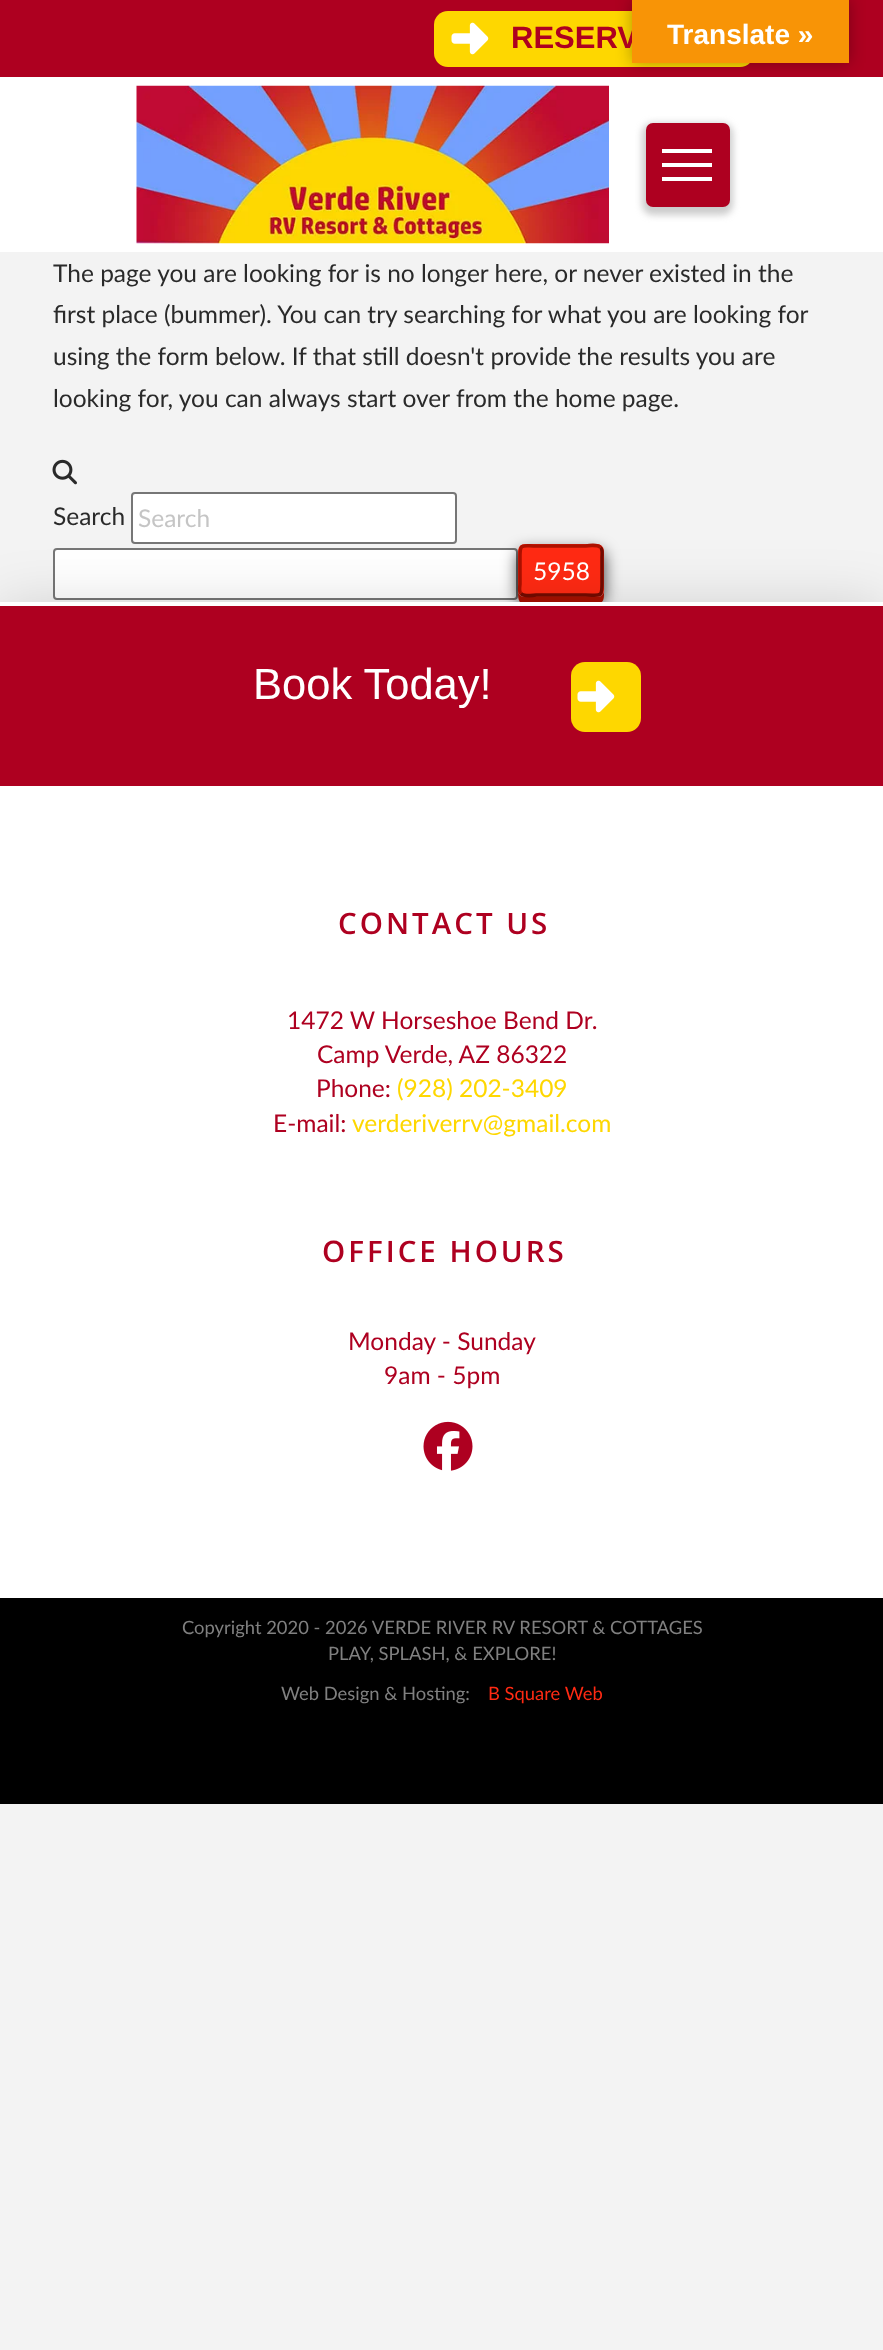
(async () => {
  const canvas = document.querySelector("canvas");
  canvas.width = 883;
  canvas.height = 2350;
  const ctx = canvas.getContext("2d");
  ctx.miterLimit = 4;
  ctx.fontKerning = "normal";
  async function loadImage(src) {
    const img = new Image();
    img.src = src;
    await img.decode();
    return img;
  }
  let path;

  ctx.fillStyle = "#f3f3f3";
  ctx.fillRect(0, 0, 883, 2350);
  ctx.fillStyle = "#ae0020";
  ctx.fillRect(0, 0, 883, 77);
  ctx.fillStyle = "#fed700";
  ctx.beginPath();
  ctx.roundRect(434, 11, 320, 56, 14);
  ctx.fill();
  ctx.fillStyle = "#ffffff";
  ctx.fillRect(0, 77, 883, 175);
  ctx.drawImage(await loadImage("img/2.png"), 136, 85, 473, 159);
  ctx.fillStyle = "rgba(0, 0, 0, 0.3)";
  ctx.filter = "blur(8px)";
  ctx.beginPath();
  ctx.rect(632, 0, 217, 63);
  ctx.fill();
  ctx.filter = "none";
  ctx.drawImage(await loadImage("img/1.png"), 451, 22, 38, 33);
  ctx.fillStyle = "rgba(150, 150, 150, 0.49)";
  ctx.filter = "blur(3.5px)";
  ctx.beginPath();
  ctx.roundRect(642, 123, 91, 92, 11);
  ctx.fill();
  ctx.filter = "none";
  ctx.fillStyle = "#ae0020";
  ctx.beginPath();
  ctx.roundRect(646, 123, 84, 84, 7);
  ctx.fill();
  for (const [x, y, w, h, color] of [
    [662, 149, 50, 4, "#ffffff"],
    [662, 163, 50, 4, "#ffffff"],
    [662, 177, 50, 4, "#ffffff"],
  ]) {
    ctx.fillStyle = color;
    ctx.fillRect(x, y, w, h);
  }
  ctx.drawImage(await loadImage("img/3.png"), 52, 459, 25, 26);
  ctx.beginPath();
  ctx.roundRect(132, 493, 324, 50, 3);
  ctx.fill();
  ctx.strokeStyle = "#767676";
  ctx.lineWidth = 2;
  ctx.stroke();
  ctx.beginPath();
  ctx.roundRect(54, 549, 463, 50, 3);
  ctx.fill();
  ctx.stroke();
  ctx.fillStyle = "rgba(0, 0, 0, 0.75)";
  ctx.filter = "blur(8px)";
  ctx.beginPath();
  ctx.roundRect(518, 551, 86, 53, 7);
  ctx.fill();
  ctx.filter = "none";
  ctx.fillStyle = "#a71000";
  path = new Path2D("M518 591C518 606 521 604 537 604H585C606 604 604 604 604 584V556V591C604 594 601 597 598 597H524C521 597 518 594 518 591Z");
  ctx.fill(path);
  ctx.fillStyle = "#ff2a13";
  ctx.beginPath();
  ctx.roundRect(518, 544, 86, 53, 7);
  ctx.fill();
  path = new Path2D("M600.5 547.5C603 549.5 602 555 602 557V584C602 598 600.5 595 585.5 595H536.5C536.5 595 524.5 597 521 593.5");
  ctx.strokeStyle = "#730b00";
  ctx.lineWidth = 3.5;
  ctx.stroke(path);
  path = new Path2D("M521 593.5C518.5 591.5 520 586 520 584V557C520 543 521 546 536.5 546H585.5C585.5 546 597.5 544 600.5 547.5");
  ctx.strokeStyle = "#ac1100";
  ctx.stroke(path);
  ctx.fillStyle = "rgba(0, 0, 0, 0.15)";
  ctx.filter = "blur(28px)";
  ctx.beginPath();
  ctx.rect(0, 606, 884, 187);
  ctx.fill();
  ctx.filter = "none";
  for (const [x, y, w, h, color] of [
    [0, 606, 883, 180, "#ae0020"],
    [0, 602, 883, 4, "#ffffff"],
    [0, 786, 883, 812, "#ffffff"],
  ]) {
    ctx.fillStyle = color;
    ctx.fillRect(x, y, w, h);
  }
  ctx.fillStyle = "#fed700";
  ctx.beginPath();
  ctx.roundRect(571, 662, 70, 70, 14);
  ctx.fill();
  ctx.drawImage(await loadImage("img/1.png"), 577, 680, 38, 33);
  ctx.drawImage(await loadImage("img/4.png"), 423, 1421, 50, 50);
  ctx.fillStyle = "#000000";
  ctx.fillRect(0, 1598, 883, 206);
  ctx.font = "bold 31px Liberation Sans";
  ctx.fillStyle = "#ae0020";
  ctx.fillText("RESERV", 511, 48);
  ctx.fillStyle = "#f89406";
  ctx.fillRect(632, 0, 217, 63);
  ctx.font = "bold 28px Liberation Sans";
  ctx.fillStyle = "#ffffff";
  ctx.fillText("Translate »", 667, 44);
  ctx.font = "24.5px Lato";
  ctx.fillStyle = "#2a2a2a";
  for (const [text, x, y] of [
    ["The page you are looking for is no longer here, or never existed in the", 53, 282],
    ["first place (bummer). You can try searching for what you are looking for", 53, 323],
    ["using the form below. If that still doesn't provide the results you are", 53, 365],
    ["looking for, you can always start over from the home page.", 53, 407],
    ["Search", 53, 525],
  ]) {
    ctx.fillText(text, x, y);
  }
  ctx.fillStyle = "#c5c5c5";
  ctx.fillText("Search", 138, 527);
  ctx.fillStyle = "#ffffff";
  ctx.fillText("5958", 533, 580);
  ctx.font = "43.5px Liberation Sans";
  ctx.fillText("Book Today!", 253, 699);
  ctx.letterSpacing = "3px";
  ctx.font = "600 29.5px Open Sans";
  ctx.fillStyle = "#ae0020";
  ctx.fillText("CONTACT US", 338, 934);
  ctx.letterSpacing = "0px";
  ctx.font = "24.5px Lato";
  for (const [text, x, y] of [
    ["1472 W Horseshoe Bend Dr.", 287, 1029],
    ["Camp Verde, AZ 86322", 317, 1063],
    ["Phone:", 316, 1097],
  ]) {
    ctx.fillText(text, x, y);
  }
  ctx.fillStyle = "#fed700";
  ctx.fillText("(928) 202-3409", 397, 1097);
  ctx.fillStyle = "#ae0020";
  ctx.fillText("E-mail:", 273, 1132);
  ctx.fillStyle = "#fed700";
  ctx.fillText("verderiverrv@gmail.com", 352, 1132);
  ctx.letterSpacing = "3px";
  ctx.font = "600 29.5px Open Sans";
  ctx.fillStyle = "#ae0020";
  ctx.fillText("OFFICE HOURS", 322, 1262);
  ctx.letterSpacing = "0px";
  ctx.font = "24.5px Lato";
  ctx.fillText("Monday - Sunday", 348, 1350);
  ctx.fillText("9am - 5pm", 384, 1384);
  ctx.font = "18.4px Lato";
  ctx.fillStyle = "#808080";
  for (const [text, x, y] of [
    ["Copyright 2020 - 2026 VERDE RIVER RV RESORT & COTTAGES", 182, 1634],
    ["PLAY, SPLASH, & EXPLORE!", 328, 1660],
    ["Web Design & Hosting:", 281, 1700],
  ]) {
    ctx.fillText(text, x, y);
  }
  ctx.fillStyle = "#ff2a13";
  ctx.fillText("B Square Web", 488, 1700);
})();
